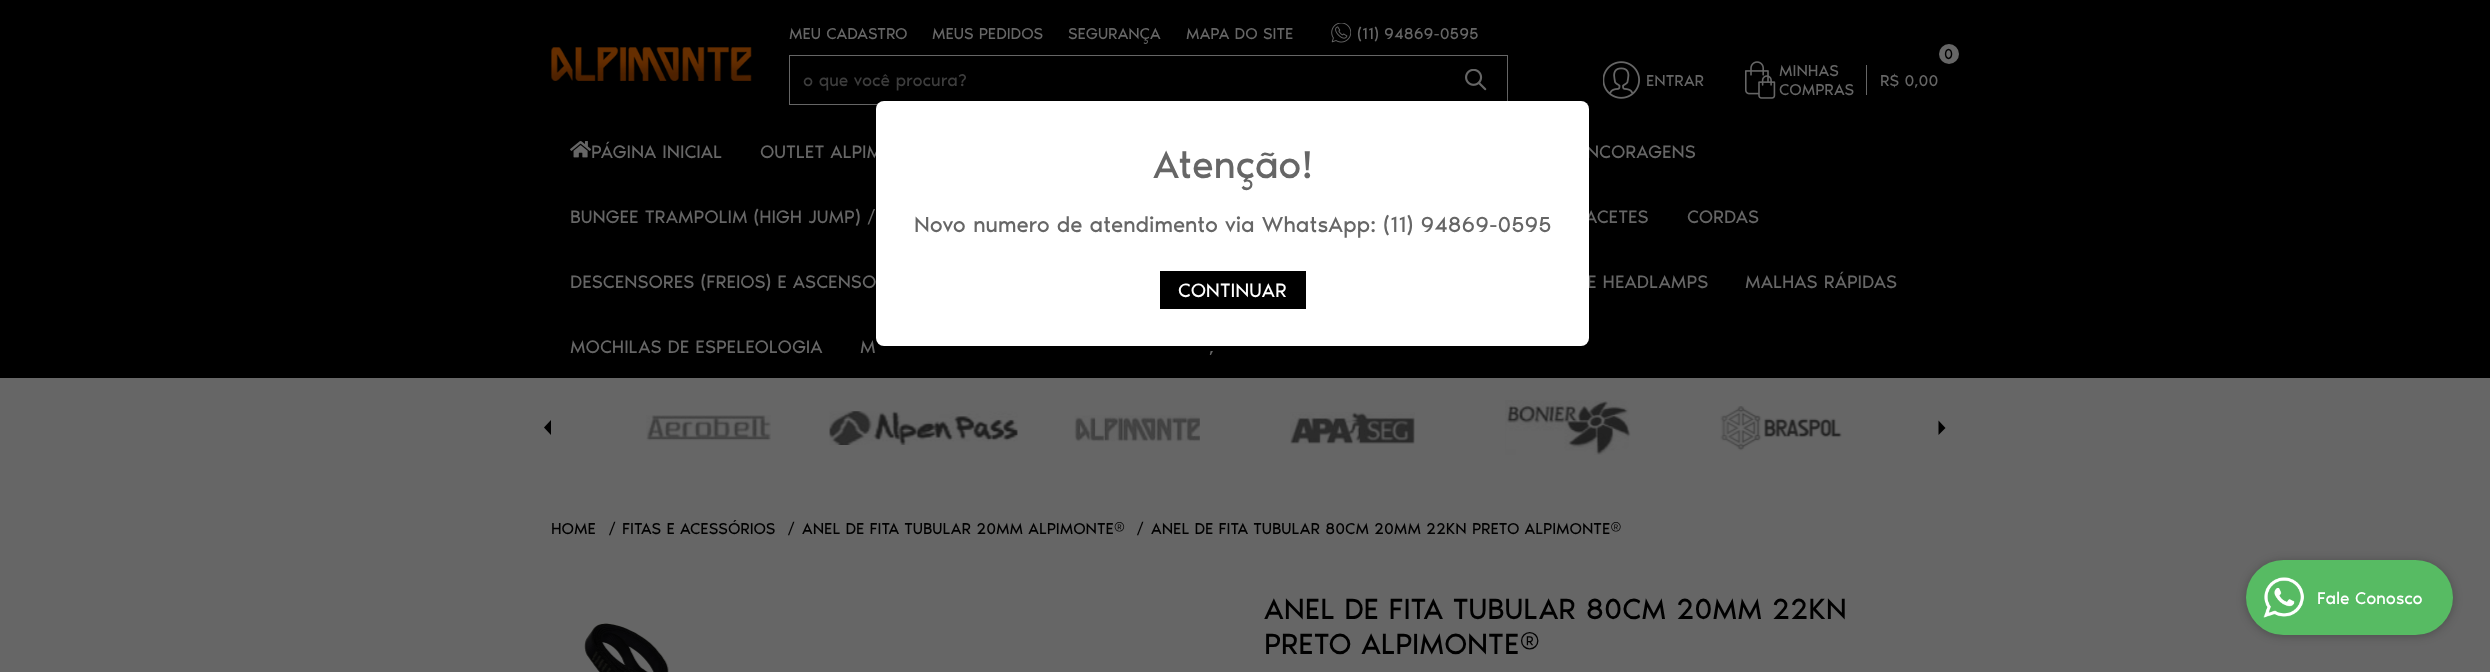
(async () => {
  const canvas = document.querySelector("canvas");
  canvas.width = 2490;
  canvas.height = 672;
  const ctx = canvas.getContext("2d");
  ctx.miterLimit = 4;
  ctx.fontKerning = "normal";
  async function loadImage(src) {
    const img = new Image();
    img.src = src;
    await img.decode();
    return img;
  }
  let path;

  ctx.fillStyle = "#666666";
  ctx.fillRect(0, 0, 2490, 672);
  ctx.fillStyle = "#000000";
  ctx.fillRect(0, 0, 2490, 378);
  ctx.drawImage(await loadImage("img/1.png"), 1331, 23, 20, 20);
  ctx.drawImage(await loadImage("img/2.png"), 551, 47, 201, 34);
  ctx.strokeStyle = "#666666";
  ctx.strokeRect(789.5, 55.5, 718, 49);
  ctx.drawImage(await loadImage("img/3.png"), 1465, 69, 22, 22);
  ctx.drawImage(await loadImage("img/4.png"), 1603, 61, 37, 38);
  ctx.fillStyle = "#666666";
  ctx.beginPath();
  ctx.arc(1949, 54, 10, 0, Math.PI * 2);
  ctx.fill();
  ctx.drawImage(await loadImage("img/5.png"), 1745, 61, 31, 38);
  ctx.fillRect(1866, 65, 1, 30);
  ctx.drawImage(await loadImage("img/6.png"), 570, 141, 22, 17);
  ctx.drawImage(await loadImage("img/7.png"), 646, 415, 125, 26);
  ctx.drawImage(await loadImage("img/8.png"), 829, 411, 189, 34);
  ctx.drawImage(await loadImage("img/9.png"), 1074, 415, 126, 27);
  ctx.drawImage(await loadImage("img/10.png"), 1290, 412, 125, 32);
  ctx.drawImage(await loadImage("img/11.png"), 1505, 400, 126, 55);
  ctx.drawImage(await loadImage("img/12.png"), 1720, 406, 122, 45);
  ctx.fillStyle = "#000000";
  path = new Path2D("M551 420V435L544 427.5Z");
  ctx.fill(path);
  path = new Path2D("M1938.5 435V420.5L1945.5 428Z");
  ctx.fill(path);
  ctx.fillStyle = "rgba(0, 0, 0, 0.25)";
  ctx.filter = "blur(6px)";
  ctx.beginPath();
  ctx.roundRect(876, 101, 713, 245, 8);
  ctx.fill();
  ctx.filter = "none";
  ctx.drawImage(await loadImage("img/13.png"), 584, 623, 85, 49);
  ctx.filter = "blur(5px)";
  ctx.beginPath();
  ctx.roundRect(2246, 561, 207, 75, 37.5);
  ctx.fill();
  ctx.filter = "none";
  ctx.fillStyle = "#57bb63";
  ctx.beginPath();
  ctx.roundRect(2246, 560, 207, 75, 37.5);
  ctx.fill();
  ctx.drawImage(await loadImage("img/14.png"), 2263, 577, 41, 41);
  ctx.font = "16.25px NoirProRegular";
  ctx.fillStyle = "#666666";
  for (const [text, x, y] of [
    ["MEU CADASTRO", 789, 39],
    ["MEUS PEDIDOS", 932, 39],
    ["SEGURANÇA", 1068, 39],
    ["MAPA DO SITE", 1186, 39],
    ["(11) 94869-0595", 1357, 39],
  ]) {
    ctx.fillText(text, x, y);
  }
  ctx.font = "17.5px NoirProRegular";
  ctx.fillStyle = "#3d3d3d";
  ctx.fillText("o que você procura?", 803, 86);
  ctx.font = "16.25px NoirProRegular";
  ctx.fillStyle = "#666666";
  ctx.fillText("ENTRAR", 1646, 86);
  ctx.font = "15px NoirProRegular";
  ctx.fillStyle = "#000000";
  ctx.fillText("0", 1944, 59);
  ctx.font = "16.25px NoirProRegular";
  ctx.fillStyle = "#666666";
  for (const [text, x, y] of [
    ["MINHAS", 1779, 76],
    ["COMPRAS", 1779, 95],
    ["R$ 0,00", 1880, 86],
  ]) {
    ctx.fillText(text, x, y);
  }
  ctx.font = "18.75px NoirProRegular";
  for (const [text, x, y] of [
    ["PÁGINA INICIAL", 591, 158],
    ["OUTLET ALPIM", 760, 158],
    ["NCORAGENS", 1586, 158],
    ["BUNGEE TRAMPOLIM (HIGH JUMP) /", 570, 223],
    ["ACETES", 1585, 223],
    ["CORDAS", 1687, 223],
    ["DESCENSORES (FREIOS) E ASCENSO", 570, 288],
    ["E HEADLAMPS", 1587, 288],
    ["MALHAS RÁPIDAS", 1745, 288],
    ["MOCHILAS DE ESPELEOLOGIA", 570, 353],
    ["M", 860, 353],
    [",", 1209, 353],
  ]) {
    ctx.fillText(text, x, y);
  }
  ctx.fillStyle = "#ffffff";
  ctx.beginPath();
  ctx.roundRect(876, 101, 713, 245, 8);
  ctx.fill();
  ctx.font = "40px NoirProRegular";
  ctx.fillStyle = "#666666";
  ctx.fillText("Atenção!", 1153, 178);
  ctx.font = "22.5px NoirProRegular";
  ctx.fillText("Novo numero de atendimento via WhatsApp: (11) 94869-0595", 914, 232);
  ctx.fillStyle = "#000000";
  ctx.fillRect(1160, 271, 146, 38);
  ctx.font = "20px NoirProRegular";
  ctx.fillStyle = "#ffffff";
  ctx.fillText("CONTINUAR", 1178, 297);
  ctx.font = "16.25px NoirProRegular";
  ctx.fillStyle = "#000000";
  for (const [text, x, y] of [
    ["HOME", 551, 534],
    ["/", 608, 534],
    ["FITAS E ACESSÓRIOS", 622, 534],
    ["/", 787, 534],
    ["ANEL DE FITA TUBULAR 20MM ALPIMONTE®", 802, 534],
    ["/", 1136, 534],
    ["ANEL DE FITA TUBULAR 80CM 20MM 22KN PRETO ALPIMONTE®", 1151, 534],
  ]) {
    ctx.fillText(text, x, y);
  }
  ctx.font = "30px NoirProRegular";
  ctx.fillText("ANEL DE FITA TUBULAR 80CM 20MM 22KN", 1264, 619);
  ctx.fillText("PRETO ALPIMONTE®", 1264, 654);
  ctx.font = "17.5px NoirProRegular";
  ctx.fillStyle = "#ffffff";
  ctx.fillText("Fale Conosco", 2317, 604);
})();
